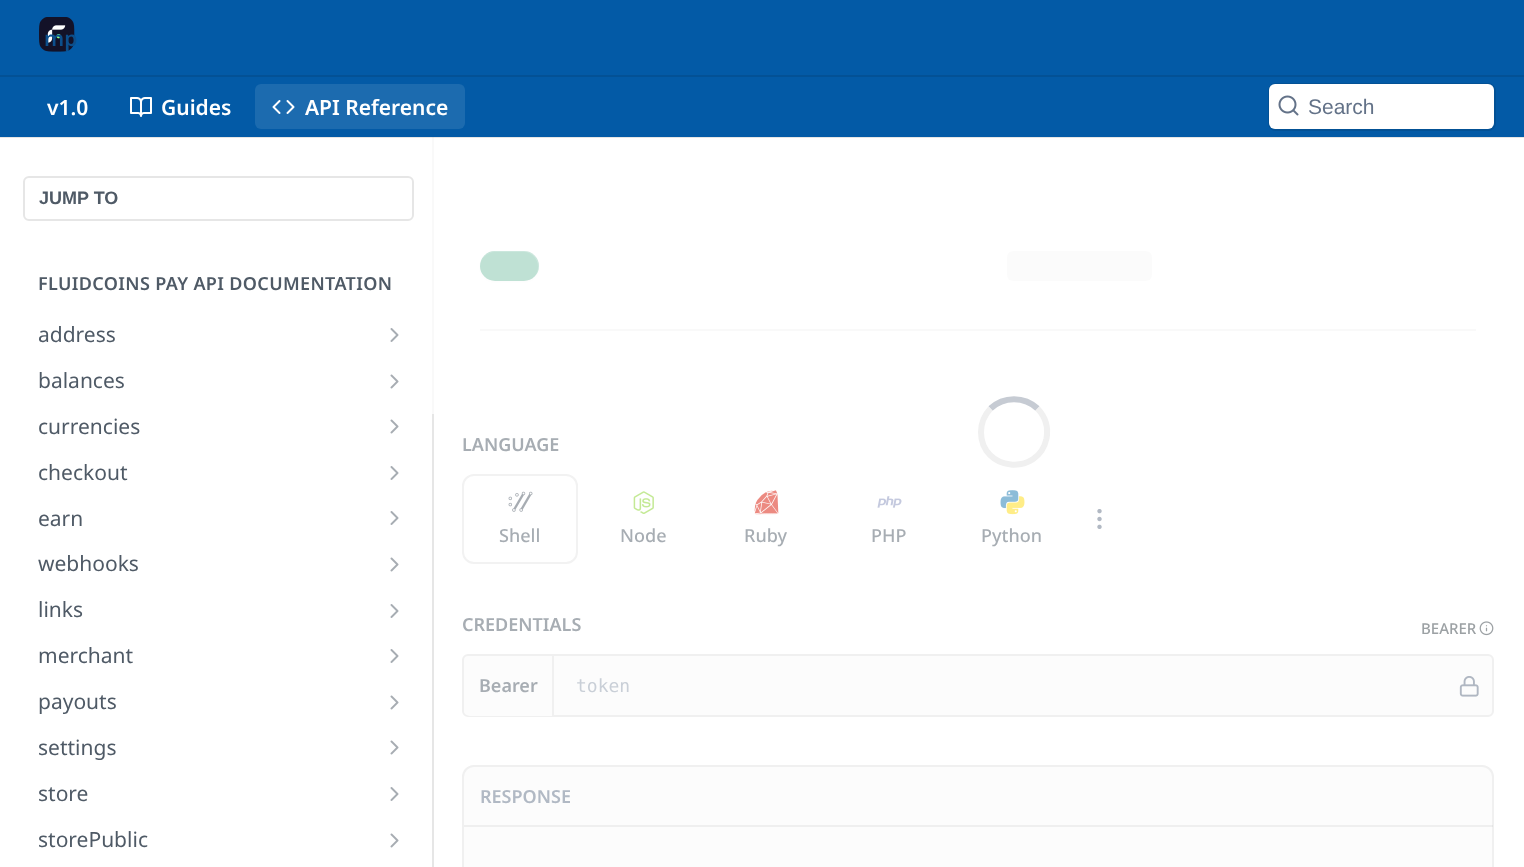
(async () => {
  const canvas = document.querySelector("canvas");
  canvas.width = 1524;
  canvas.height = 867;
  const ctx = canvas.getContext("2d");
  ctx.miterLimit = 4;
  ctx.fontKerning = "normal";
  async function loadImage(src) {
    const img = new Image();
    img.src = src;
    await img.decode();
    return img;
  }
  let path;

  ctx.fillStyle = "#ffffff";
  ctx.fillRect(0, 0, 1524, 867);
  ctx.fillStyle = "#e6e6e6";
  path = new Path2D("M2 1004H434V137H432V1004Z");
  ctx.fill(path);
  ctx.fillRect(480, 329, 996, 2);
  ctx.fillStyle = "rgba(0, 0, 0, 0.05)";
  ctx.filter = "blur(1.5px)";
  ctx.beginPath();
  ctx.roundRect(480, 252, 59, 30, 15);
  ctx.fill();
  ctx.filter = "none";
  ctx.fillStyle = "#008756";
  ctx.beginPath();
  ctx.roundRect(480, 251, 59, 30, 15);
  ctx.fill();
  ctx.fillStyle = "rgba(255, 255, 255, 0.2)";
  path = new Path2D("M495 252H524C532 252 538 259 538 267C538 270 537 273 535 276C543 268 538 254 527 251H510C500 251 489 249 483 258C481 260 480 263 480 267C480 259 487 252 495 252Z");
  ctx.fill(path);
  ctx.fillStyle = "#f0f0f0";
  ctx.beginPath();
  ctx.roundRect(1007, 251, 145, 30, 6);
  ctx.fill();
  for (const [x, y, w, h, color] of [
    [432, 137, 1044, 277, "rgba(255, 255, 255, 0.75)"],
    [0, 137, 1524, 1, "rgba(0, 0, 0, 0.1)"],
    [0, 0, 1524, 137, "#035aa6"],
    [0, 75, 1524, 2, "#035195"],
  ]) {
    ctx.fillStyle = color;
    ctx.fillRect(x, y, w, h);
  }
  ctx.drawImage(await loadImage("img/1.png"), 39, 17, 36, 35);
  ctx.drawImage(await loadImage("img/2.png"), 130, 97, 22, 20);
  ctx.fillStyle = "#1c6baf";
  ctx.beginPath();
  ctx.roundRect(255, 84, 210, 45, 6);
  ctx.fill();
  ctx.drawImage(await loadImage("img/3.png"), 272, 100, 23, 14);
  ctx.beginPath();
  ctx.roundRect(1269, 84, 226, 46, 7);
  ctx.strokeStyle = "#035195";
  ctx.lineWidth = 2;
  ctx.stroke();
  ctx.fillStyle = "#ffffff";
  ctx.beginPath();
  ctx.roundRect(1269, 84, 225, 45, 6);
  ctx.fill();
  ctx.drawImage(await loadImage("img/4.png"), 1278, 95, 21, 21);
  ctx.beginPath();
  ctx.roundRect(24, 177, 389, 43, 5);
  ctx.strokeStyle = "#e6e6e6";
  ctx.stroke();
  ctx.drawImage(await loadImage("img/5.png"), 390, 328, 9, 14);
  ctx.drawImage(await loadImage("img/6.png"), 390, 374, 9, 15);
  ctx.drawImage(await loadImage("img/6.png"), 390, 419, 9, 15);
  ctx.drawImage(await loadImage("img/5.png"), 390, 466, 9, 14);
  ctx.drawImage(await loadImage("img/5.png"), 390, 511, 9, 14);
  ctx.drawImage(await loadImage("img/6.png"), 390, 557, 9, 15);
  ctx.drawImage(await loadImage("img/5.png"), 390, 604, 9, 14);
  ctx.drawImage(await loadImage("img/5.png"), 390, 649, 9, 14);
  ctx.drawImage(await loadImage("img/6.png"), 390, 695, 9, 15);
  ctx.drawImage(await loadImage("img/6.png"), 390, 740, 9, 15);
  ctx.drawImage(await loadImage("img/5.png"), 390, 787, 9, 14);
  ctx.drawImage(await loadImage("img/6.png"), 390, 833, 9, 15);
  path = new Path2D("M990.5 408.5C1003.5 396 1024.5 396 1037.5 408.5");
  ctx.strokeStyle = "#c6cbd3";
  ctx.lineWidth = 6;
  ctx.stroke(path);
  path = new Path2D("M1037.5 408.5C1045 416.5 1048.5 427.5 1046.5 438.5C1038.5 477 981 471.5 981 432C981 423.5 984.5 415 990.5 408.5");
  ctx.strokeStyle = "#f0f0f0";
  ctx.stroke(path);
  ctx.drawImage(await loadImage("img/7.png"), 1097, 509, 5, 20);
  ctx.beginPath();
  ctx.roundRect(463, 475, 114, 88, 11);
  ctx.strokeStyle = "#f2f2f2";
  ctx.lineWidth = 2;
  ctx.stroke();
  ctx.drawImage(await loadImage("img/8.png"), 508, 491, 25, 21);
  ctx.drawImage(await loadImage("img/9.png"), 633, 491, 21, 23);
  ctx.drawImage(await loadImage("img/10.png"), 754, 490, 25, 25);
  ctx.drawImage(await loadImage("img/11.png"), 877, 496, 25, 12);
  ctx.drawImage(await loadImage("img/12.png"), 1000, 490, 19, 19);
  ctx.drawImage(await loadImage("img/13.png"), 1006, 496, 19, 19);
  ctx.drawImage(await loadImage("img/14.png"), 1479, 621, 15, 15);
  ctx.fillStyle = "#fcfcfc";
  ctx.beginPath();
  ctx.roundRect(463, 655, 1030, 61, 5);
  ctx.fill();
  ctx.strokeStyle = "#f0f0f0";
  ctx.stroke();
  ctx.beginPath();
  ctx.roundRect(464, 656, 90, 60, [6, 0, 0, 6]);
  ctx.fill();
  ctx.fillStyle = "#f0f0f0";
  ctx.fillRect(552, 656, 2, 60);
  ctx.drawImage(await loadImage("img/15.png"), 1459, 676, 20, 21);
  ctx.fillStyle = "#fcfcfc";
  ctx.beginPath();
  ctx.roundRect(462, 765, 1032, 102, [12, 12, 0, 0]);
  ctx.fill();
  ctx.beginPath();
  ctx.roundRect(463, 766, 1030, 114, 11);
  ctx.stroke();
  ctx.fillStyle = "rgba(128, 128, 128, 0.1)";
  ctx.fillRect(464, 825, 1029, 2);
  ctx.font = "600 21px Noto Sans";
  ctx.fillStyle = "#0c4f8c";
  ctx.fillText("mp", 44, 46);
  ctx.fillStyle = "#ffffff";
  for (const [text, x, y] of [
    ["v1.0", 47, 115],
    ["Guides", 161, 115],
    ["API Reference", 305, 115],
  ]) {
    ctx.fillText(text, x, y);
  }
  ctx.font = "21px Liberation Sans";
  ctx.fillStyle = "#637288";
  ctx.fillText("Search", 1308, 114);
  ctx.font = "bold 18px Liberation Sans";
  ctx.fillStyle = "#4f5a66";
  ctx.fillText("JUMP TO", 39, 204);
  ctx.letterSpacing = "0.35px";
  ctx.font = "600 18px Noto Sans";
  ctx.fillText("FLUIDCOINS PAY API DOCUMENTATION", 38, 290);
  ctx.letterSpacing = "0px";
  ctx.font = "21px Noto Sans";
  for (const [text, x, y] of [
    ["address", 38, 342],
    ["balances", 38, 388],
    ["currencies", 38, 434],
    ["checkout", 38, 480],
    ["earn", 38, 526],
    ["webhooks", 38, 571],
    ["links", 38, 617],
    ["merchant", 38, 663],
    ["payouts", 38, 709],
    ["settings", 38, 755],
    ["store", 38, 801],
    ["storePublic", 38, 847],
  ]) {
    ctx.fillText(text, x, y);
  }
  ctx.font = "600 18px Noto Sans";
  ctx.fillStyle = "#a7adb3";
  ctx.fillText("LANGUAGE", 462, 451);
  ctx.font = "500 18px Noto Sans";
  for (const [text, x, y] of [
    ["Shell", 499, 542],
    ["Node", 620, 542],
    ["Ruby", 744, 542],
    ["PHP", 871, 542],
    ["Python", 981, 542],
  ]) {
    ctx.fillText(text, x, y);
  }
  ctx.font = "600 18px Noto Sans";
  ctx.fillText("CREDENTIALS", 462, 631);
  ctx.font = "500 15px Noto Sans";
  ctx.fillStyle = "#9ca1a4";
  ctx.fillText("BEARER", 1421, 634);
  ctx.font = "600 18px Noto Sans";
  ctx.fillStyle = "#a7adb3";
  ctx.fillText("Bearer", 479, 692);
  ctx.font = "18px DejaVu Sans Mono";
  ctx.fillStyle = "#c9cfd7";
  ctx.fillText("token", 576, 692);
  ctx.font = "600 18px Noto Sans";
  ctx.fillStyle = "#b1b9c4";
  ctx.fillText("RESPONSE", 480, 803);
})();
